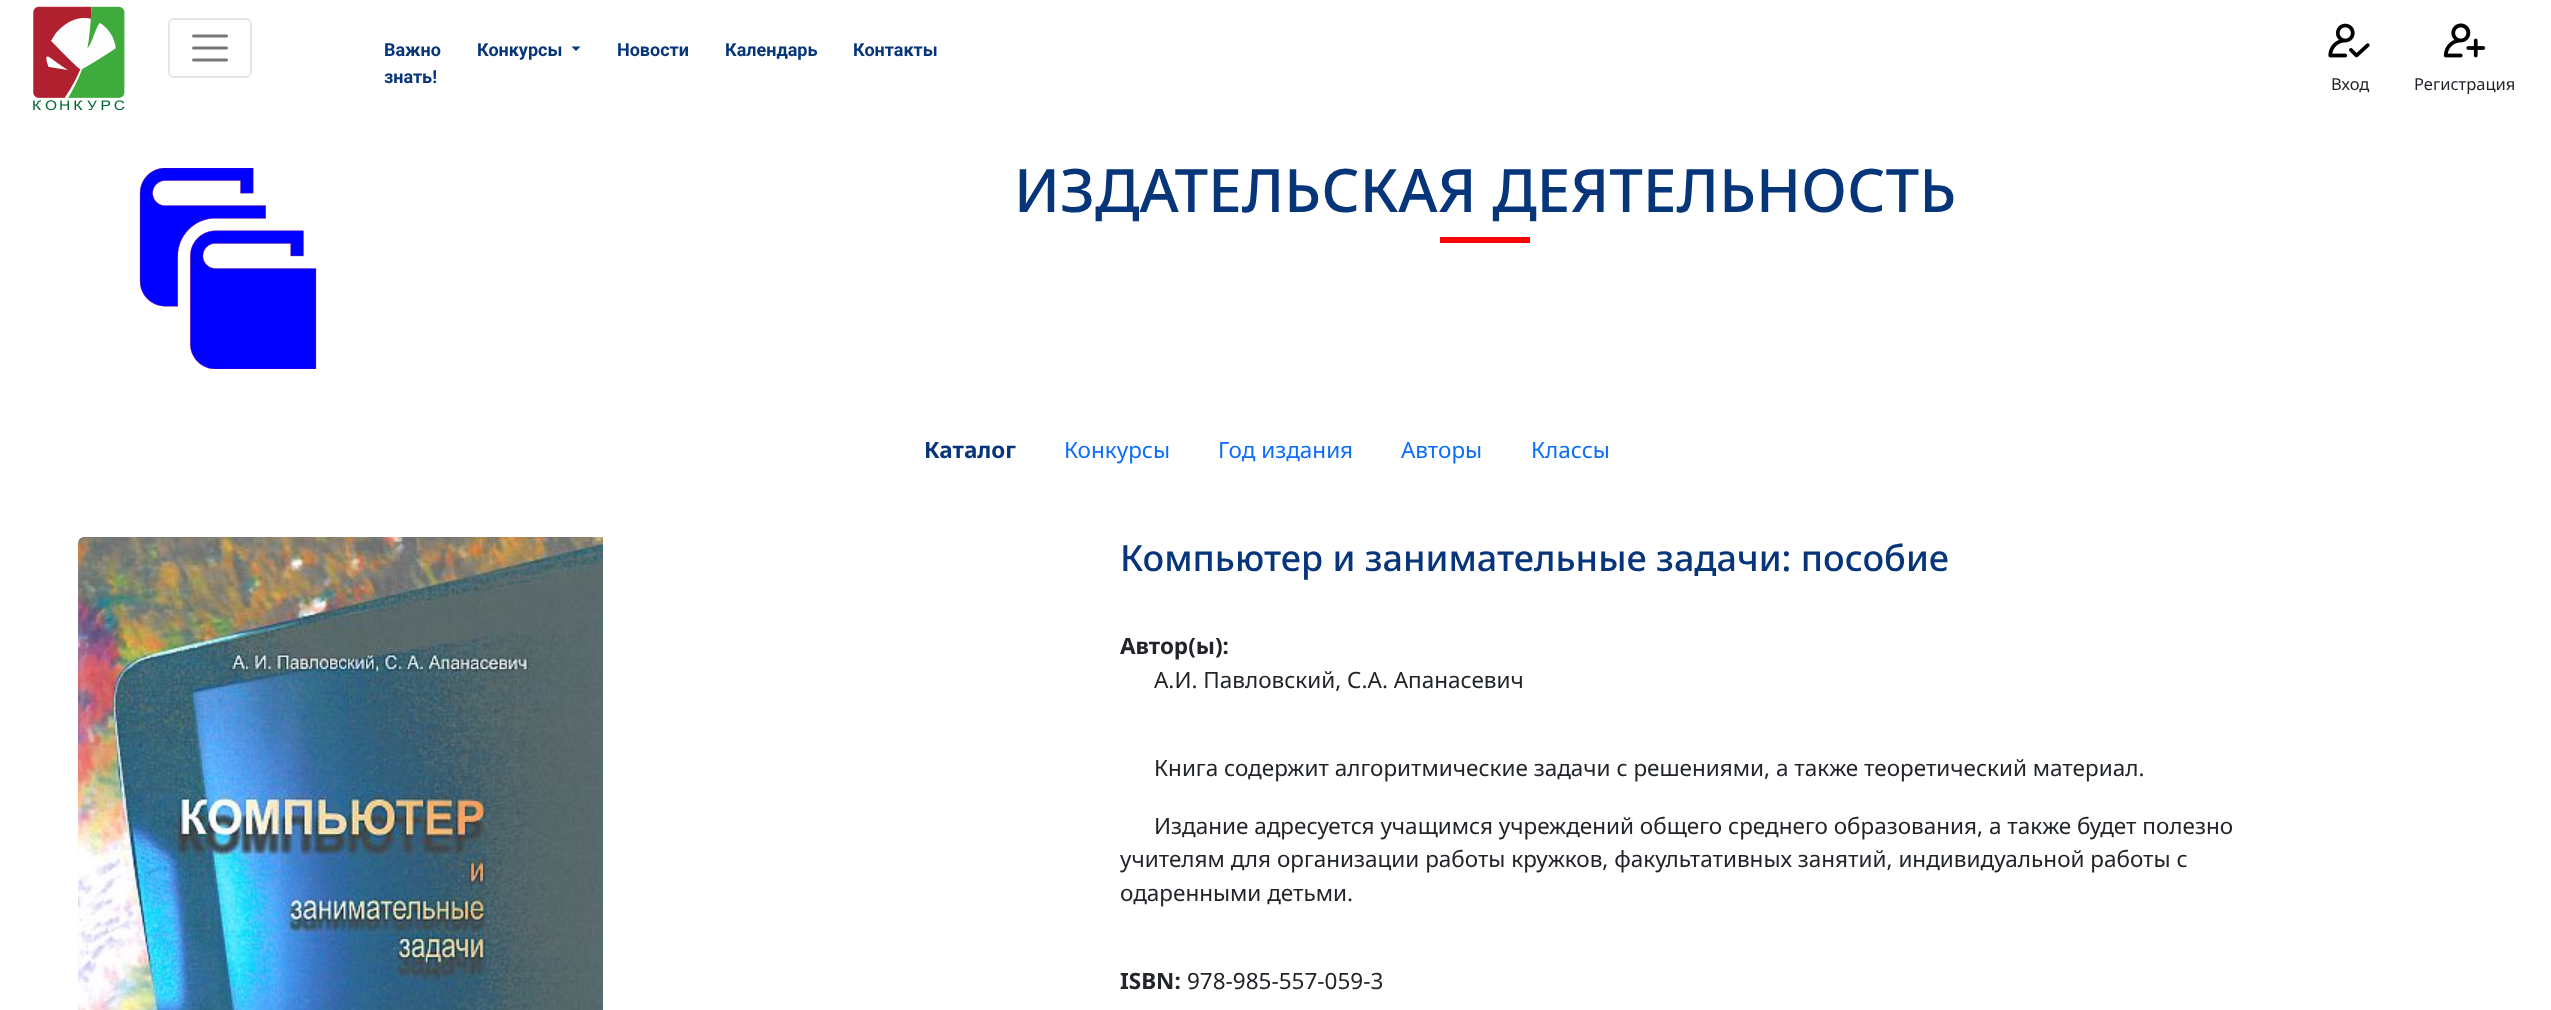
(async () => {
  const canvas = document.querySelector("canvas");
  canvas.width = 2551;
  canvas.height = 1010;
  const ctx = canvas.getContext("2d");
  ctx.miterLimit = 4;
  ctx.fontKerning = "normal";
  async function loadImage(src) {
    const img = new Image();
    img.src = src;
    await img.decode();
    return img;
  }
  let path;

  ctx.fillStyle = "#ffffff";
  ctx.fillRect(0, 0, 2551, 1010);
  ctx.beginPath();
  ctx.roundRect(169, 19, 82, 58, 5);
  ctx.strokeStyle = "#e6e6e6";
  ctx.lineWidth = 2;
  ctx.stroke();
  path = new Path2D("M193.5 36H226.5M193.5 48H226.5M193.5 60H226.5");
  ctx.strokeStyle = "#767676";
  ctx.lineWidth = 3;
  ctx.lineCap = "round";
  ctx.stroke(path);
  ctx.fillStyle = "#08377b";
  path = new Path2D("M571.5 46.5H580.5L576 51Z");
  ctx.fill(path);
  ctx.drawImage(await loadImage("img/1.png"), 33, 6, 92, 105);
  ctx.drawImage(await loadImage("img/2.png"), 2328, 23, 42, 35);
  ctx.drawImage(await loadImage("img/3.png"), 2443, 23, 43, 35);
  ctx.drawImage(await loadImage("img/4.png"), 139, 168, 178, 201);
  ctx.fillStyle = "#ff0000";
  ctx.fillRect(1440, 237, 90, 6);
  ctx.drawImage(await loadImage("img/5.png"), 78, 537, 525, 473);
  ctx.font = "bold 18px Roboto";
  ctx.fillStyle = "#06357a";
  for (const [text, x, y] of [
    ["Важно", 384, 56],
    ["знать!", 384, 83],
    ["Конкурсы", 477, 56],
    ["Новости", 617, 56],
    ["Календарь", 725, 56],
    ["Контакты", 853, 56],
  ]) {
    ctx.fillText(text, x, y);
  }
  ctx.font = "16.5px Noto Sans";
  ctx.fillStyle = "#212529";
  ctx.fillText("Вход", 2331, 90);
  ctx.fillText("Регистрация", 2414, 90);
  ctx.font = "500 60px Noto Sans";
  ctx.fillStyle = "#06357a";
  ctx.fillText("ИЗДАТЕЛЬСКАЯ ДЕЯТЕЛЬНОСТЬ", 1014, 212);
  ctx.font = "bold 22.5px Noto Sans";
  ctx.fillText("Каталог", 924, 458);
  ctx.font = "22.5px Noto Sans";
  ctx.fillStyle = "#0d6efd";
  for (const [text, x, y] of [
    ["Конкурсы", 1064, 458],
    ["Год издания", 1218, 458],
    ["Авторы", 1401, 458],
    ["Классы", 1531, 458],
  ]) {
    ctx.fillText(text, x, y);
  }
  ctx.font = "500 36px Noto Sans";
  ctx.fillStyle = "#06357a";
  ctx.fillText("Компьютер и занимательные задачи: пособие", 1120, 571);
  ctx.font = "bold 22.5px Noto Sans";
  ctx.fillStyle = "#212529";
  ctx.fillText("Автор(ы):", 1120, 654);
  ctx.font = "22.5px Noto Sans";
  for (const [text, x, y] of [
    ["А.И. Павловский, С.А. Апанасевич", 1154, 688],
    ["Книга содержит алгоритмические задачи с решениями, а также теоретический материал.", 1154, 776],
    ["Издание адресуется учащимся учреждений общего среднего образования, а также будет полезно", 1154, 834],
    ["учителям для организации работы кружков, факультативных занятий, индивидуальной работы с", 1120, 867],
    ["одаренными детьми.", 1120, 901],
  ]) {
    ctx.fillText(text, x, y);
  }
  ctx.font = "bold 22.5px Noto Sans";
  ctx.fillText("ISBN:", 1120, 989);
  ctx.font = "22.5px Noto Sans";
  ctx.fillText("978-985-557-059-3", 1187, 989);
})();
